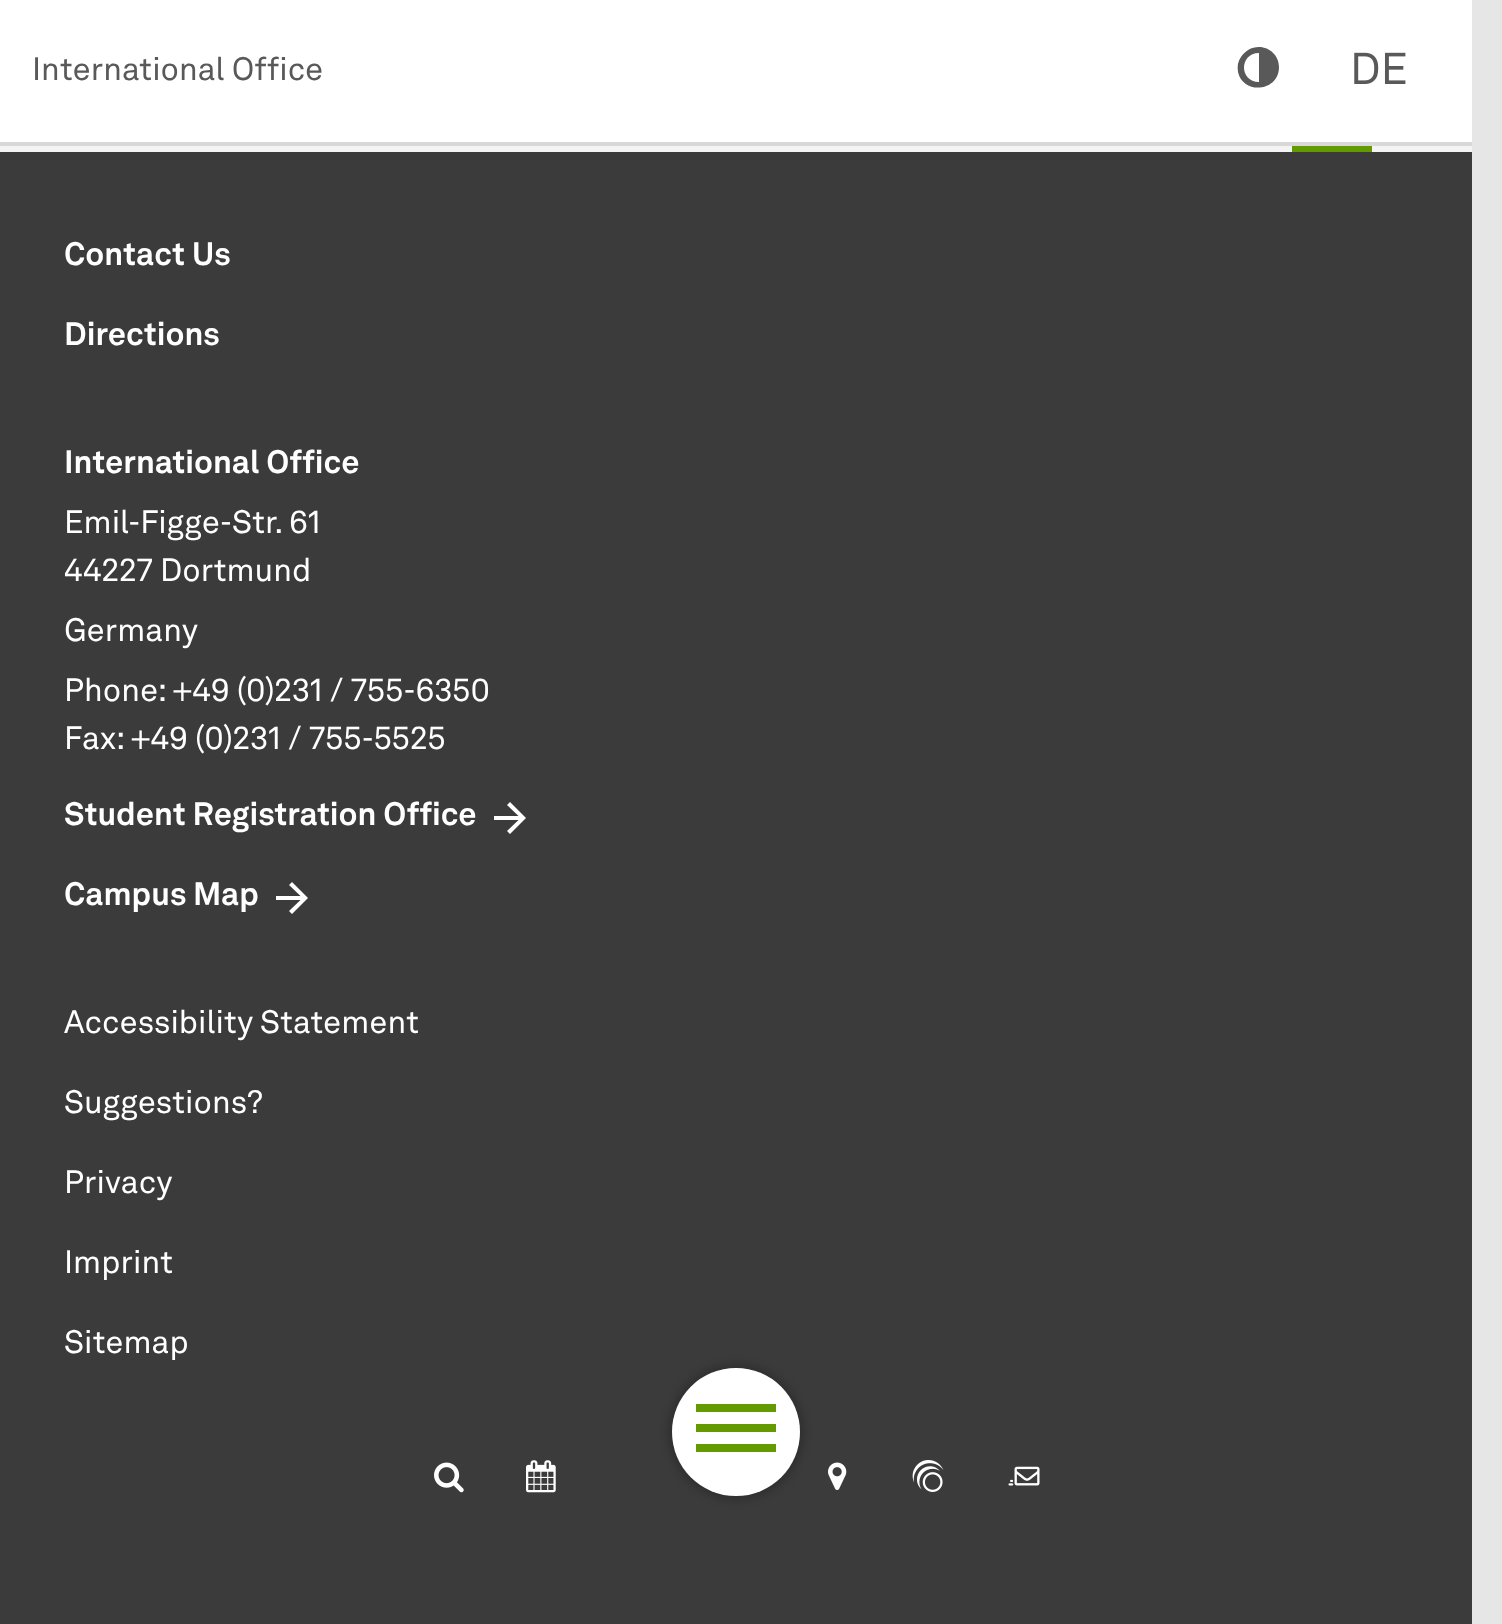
(async () => {
  const canvas = document.querySelector("canvas");
  canvas.width = 1502;
  canvas.height = 1624;
  const ctx = canvas.getContext("2d");
  ctx.miterLimit = 4;
  ctx.fontKerning = "normal";
  async function loadImage(src) {
    const img = new Image();
    img.src = src;
    await img.decode();
    return img;
  }
  let path;

  ctx.fillStyle = "#e6e6e6";
  ctx.fillRect(0, 0, 1502, 1624);
  ctx.fillStyle = "#ffffff";
  ctx.fillRect(0, 0, 1472, 142);
  ctx.fillStyle = "#d8d8d8";
  ctx.fillRect(0, 142, 1472, 4);
  ctx.fillStyle = "#595959";
  path = new Path2D("M1259 82V53C1239 53 1239 82 1259 82ZM1279 67C1279 92 1243 95 1238 72C1237 66 1238 61 1241 57C1245 51 1251 47 1259 47C1270 47 1279 56 1279 67Z");
  ctx.fill(path);
  ctx.drawImage(await loadImage("img/1.png"), 1354, 52, 52, 32);
  for (const [x, y, w, h, color] of [
    [0, 146, 1472, 6, "#f4f4f4"],
    [1292, 146, 80, 6, "#639a00"],
    [0, 152, 1472, 1472, "#3b3b3b"],
  ]) {
    ctx.fillStyle = color;
    ctx.fillRect(x, y, w, h);
  }
  ctx.fillStyle = "#ffffff";
  path = new Path2D("M494 820V816H518.5L507 805L510 802L526 818L510 834L507 831L518.5 820Z");
  ctx.fill(path);
  path = new Path2D("M276 900V896H300.5L289 885L292 882L308 898L292 914L289 911L300.5 900Z");
  ctx.fill(path);
  ctx.drawImage(await loadImage("img/2.png"), 434, 1462, 30, 31);
  ctx.drawImage(await loadImage("img/3.png"), 526, 1460, 30, 33);
  ctx.fillStyle = "rgba(0, 0, 0, 0.2)";
  ctx.filter = "blur(4px)";
  ctx.beginPath();
  ctx.roundRect(668, 1364, 136, 136, 68);
  ctx.fill();
  ctx.filter = "none";
  ctx.fillStyle = "#ffffff";
  ctx.beginPath();
  ctx.arc(736, 1432, 64, 0, Math.PI * 2);
  ctx.fill();
  ctx.fillStyle = "#639a00";
  path = new Path2D("M696 1404H776V1412H696ZM696 1424H776V1432H696ZM696 1444H776V1452H696Z");
  ctx.fill(path);
  ctx.drawImage(await loadImage("img/4.png"), 828, 1462, 19, 28);
  ctx.drawImage(await loadImage("img/5.png"), 912, 1460, 32, 32);
  ctx.drawImage(await loadImage("img/6.png"), 1008, 1466, 32, 20);
  ctx.font = "32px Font";
  ctx.fillStyle = "#595959";
  ctx.fillText("International Office", 32, 80);
  ctx.font = "bold 32px Font";
  ctx.fillStyle = "#ffffff";
  for (const [text, x, y] of [
    ["Contact Us", 64, 265],
    ["Directions", 64, 345],
    ["International Office", 64, 473],
  ]) {
    ctx.fillText(text, x, y);
  }
  ctx.font = "32px Font";
  for (const [text, x, y] of [
    ["Emil-Figge-Str. 61", 64, 533],
    ["44227 Dortmund", 64, 581],
    ["Germany", 64, 641],
    ["Phone: +49 (0)231 / 755-6350", 64, 701],
    ["Fax: +49 (0)231 / 755-5525", 64, 749],
  ]) {
    ctx.fillText(text, x, y);
  }
  ctx.font = "bold 32px Font";
  ctx.fillText("Student Registration Office", 64, 825);
  ctx.fillText("Campus Map", 64, 905);
  ctx.font = "32px Font";
  for (const [text, x, y] of [
    ["Accessibility Statement", 64, 1033],
    ["Suggestions?", 64, 1113],
    ["Privacy", 64, 1193],
    ["Imprint", 64, 1273],
    ["Sitemap", 64, 1353],
  ]) {
    ctx.fillText(text, x, y);
  }
})();
